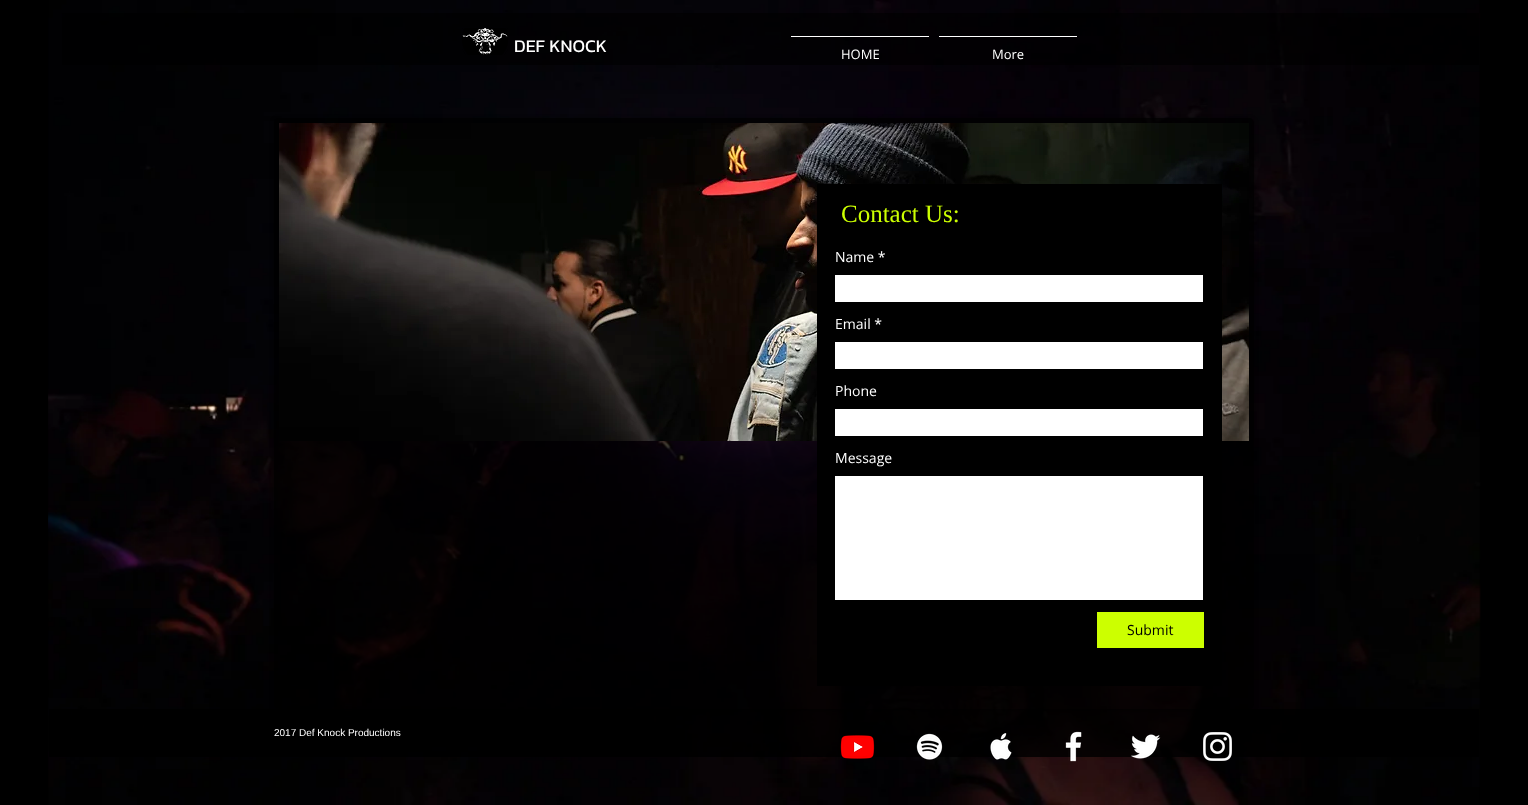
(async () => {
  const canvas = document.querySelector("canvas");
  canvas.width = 1528;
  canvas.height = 805;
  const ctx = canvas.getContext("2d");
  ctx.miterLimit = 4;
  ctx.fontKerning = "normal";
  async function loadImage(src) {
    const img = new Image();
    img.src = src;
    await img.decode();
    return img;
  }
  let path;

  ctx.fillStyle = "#000000";
  ctx.fillRect(0, 0, 1528, 805);
  ctx.drawImage(await loadImage("img/1.png"), 48, 0, 1433, 805);
  ctx.fillStyle = "rgba(0, 0, 0, 0.6)";
  ctx.fillRect(62, 13, 1417, 52);
  ctx.drawImage(await loadImage("img/2.png"), 462, 28, 46, 27);
  ctx.fillStyle = "#ffffff";
  ctx.fillRect(791, 36, 138, 1);
  ctx.fillRect(939, 36, 138, 1);
  ctx.save();
  path = new Path2D("M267 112H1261V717H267ZM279 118H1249C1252 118 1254 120 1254 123V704C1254 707 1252 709 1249 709H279C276 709 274 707 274 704V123C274 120 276 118 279 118Z");
  ctx.clip(path, "evenodd");
  ctx.fillStyle = "rgba(0, 0, 0, 0.6)";
  ctx.filter = "blur(2px)";
  ctx.beginPath();
  ctx.roundRect(274, 119, 980, 591, 5);
  ctx.fill();
  ctx.filter = "none";
  ctx.restore();
  ctx.fillStyle = "rgba(0, 0, 0, 0.75)";
  ctx.beginPath();
  ctx.roundRect(274, 118, 980, 591, 5);
  ctx.fill();
  ctx.drawImage(await loadImage("img/3.png"), 279, 123, 970, 318);
  for (const [x, y, w, h, color] of [
    [817, 184, 405, 502, "#000000"],
    [835, 275, 368, 27, "#ffffff"],
    [835, 342, 368, 27, "#ffffff"],
    [835, 409, 368, 27, "#ffffff"],
    [835, 476, 368, 124, "#ffffff"],
    [1097, 612, 107, 36, "#ccff00"],
    [49, 709, 1430, 48, "rgba(0, 0, 0, 0.82)"],
  ]) {
    ctx.fillStyle = color;
    ctx.fillRect(x, y, w, h);
  }
  ctx.drawImage(await loadImage("img/4.png"), 840, 735, 35, 24);
  ctx.drawImage(await loadImage("img/5.png"), 916, 733, 27, 27);
  ctx.drawImage(await loadImage("img/6.png"), 990, 733, 22, 27);
  ctx.drawImage(await loadImage("img/7.png"), 1065, 731, 17, 31);
  ctx.drawImage(await loadImage("img/8.png"), 1131, 734, 30, 25);
  ctx.drawImage(await loadImage("img/9.png"), 1203, 732, 29, 29);
  ctx.font = "18px Kanit";
  ctx.fillStyle = "#ffffff";
  ctx.fillText("DEF KNOCK", 514, 52);
  ctx.font = "13px Open Sans";
  ctx.fillText("HOME", 841, 59);
  ctx.fillText("More", 992, 59);
  ctx.font = "25px Liberation Serif";
  ctx.fillStyle = "#ccff00";
  ctx.fillText("Contact Us:", 841, 222);
  ctx.font = "14px Open Sans";
  ctx.fillStyle = "#ffffff";
  for (const [text, x, y] of [
    ["Name *", 835, 262],
    ["Email *", 835, 329],
    ["Phone", 835, 396],
    ["Message", 835, 463],
  ]) {
    ctx.fillText(text, x, y);
  }
  ctx.fillStyle = "#000000";
  ctx.fillText("Submit", 1127, 635);
  ctx.font = "10px Liberation Sans";
  ctx.fillStyle = "#ffffff";
  ctx.fillText("2017 Def Knock Productions", 274, 736);
})();
